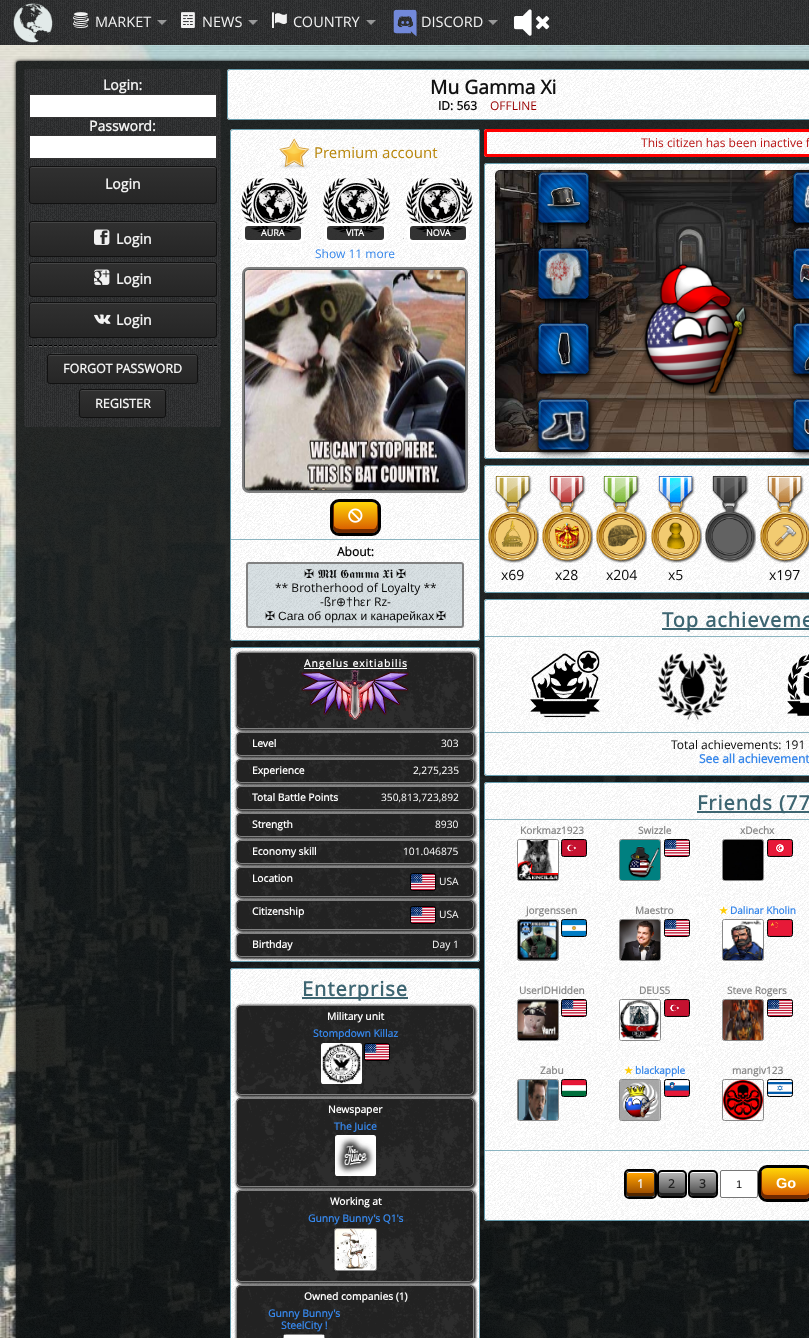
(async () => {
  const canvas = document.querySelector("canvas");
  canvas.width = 809;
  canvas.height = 1338;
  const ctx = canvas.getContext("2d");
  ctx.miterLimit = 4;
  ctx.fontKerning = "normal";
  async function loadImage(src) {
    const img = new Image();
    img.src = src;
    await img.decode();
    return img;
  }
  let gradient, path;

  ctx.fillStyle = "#ffffff";
  ctx.fillRect(0, 0, 809, 1338);
  ctx.drawImage(await loadImage("img/1.png"), 0, 45, 809, 1293);
  ctx.save();
  path = new Path2D("M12 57H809V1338H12ZM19 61H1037C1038.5 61 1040 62.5 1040 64V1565C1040 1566.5 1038.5 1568 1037 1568H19C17.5 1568 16 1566.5 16 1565V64C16 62.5 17.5 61 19 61Z");
  ctx.clip(path, "evenodd");
  ctx.fillStyle = "rgba(0, 0, 0, 0.6)";
  ctx.filter = "blur(1px)";
  ctx.beginPath();
  ctx.roundRect(16, 61, 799, 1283, 3);
  ctx.fill();
  ctx.filter = "none";
  ctx.restore();
  ctx.save();
  path = new Path2D("M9 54H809V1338H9ZM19 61H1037C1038.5 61 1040 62.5 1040 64V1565C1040 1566.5 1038.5 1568 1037 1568H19C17.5 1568 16 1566.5 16 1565V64C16 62.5 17.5 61 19 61Z");
  ctx.clip(path, "evenodd");
  ctx.fillStyle = "rgba(0, 0, 0, 0.6)";
  ctx.filter = "blur(2px)";
  ctx.beginPath();
  ctx.roundRect(16, 61, 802, 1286, 3);
  ctx.fill();
  ctx.filter = "none";
  ctx.restore();
  ctx.fillStyle = "rgba(12, 16, 16, 0.9)";
  ctx.beginPath();
  ctx.roundRect(16, 61, 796, 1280, 3);
  ctx.fill();
  ctx.drawImage(await loadImage("img/2.png"), 16, 61, 793, 1277);
  ctx.drawImage(await loadImage("img/3.png"), 0, 0, 809, 45);
  ctx.drawImage(await loadImage("img/4.png"), 13, 3, 40, 40);
  ctx.drawImage(await loadImage("img/5.png"), 73, 12, 16, 16);
  ctx.fillStyle = "rgba(255, 255, 255, 0.5)";
  path = new Path2D("M157 20H167L162 25Z");
  ctx.fill(path);
  ctx.drawImage(await loadImage("img/6.png"), 181, 12, 14, 16);
  path = new Path2D("M248 20H258L253 25Z");
  ctx.fill(path);
  ctx.drawImage(await loadImage("img/7.png"), 272, 12, 15, 16);
  path = new Path2D("M366 20H376L371 25Z");
  ctx.fill(path);
  ctx.drawImage(await loadImage("img/8.png"), 393, 9, 24, 28);
  path = new Path2D("M488 20H498L493 25Z");
  ctx.fill(path);
  ctx.drawImage(await loadImage("img/9.png"), 514, 9, 36, 27);
  ctx.drawImage(await loadImage("img/10.png"), 24, 69, 197, 358);
  ctx.fillStyle = "rgba(0, 0, 0, 0.6)";
  ctx.filter = "blur(0.5px)";
  ctx.beginPath();
  ctx.rect(29, 94, 188, 24);
  ctx.fill();
  ctx.filter = "none";
  ctx.fillStyle = "#ffffff";
  ctx.beginPath();
  ctx.rect(29.5, 94.5, 187, 23);
  ctx.fill();
  ctx.strokeStyle = "#333333";
  ctx.stroke();
  ctx.fillStyle = "rgba(0, 0, 0, 0.6)";
  ctx.filter = "blur(0.5px)";
  ctx.beginPath();
  ctx.rect(29, 135, 188, 24);
  ctx.fill();
  ctx.filter = "none";
  ctx.fillStyle = "#ffffff";
  ctx.beginPath();
  ctx.rect(29.5, 135.5, 187, 23);
  ctx.fill();
  ctx.stroke();
  ctx.save();
  ctx.beginPath();
  ctx.roundRect(29, 166, 188, 38, 3);
  ctx.clip();
  gradient = ctx.createLinearGradient(123, 167, 123, 203);
  gradient.addColorStop(0, "#303030");
  gradient.addColorStop(1, "#262626");
  ctx.fillStyle = gradient;
  ctx.fillRect(29, 167, 188, 36);
  ctx.restore();
  ctx.fillStyle = "#454545";
  path = new Path2D("M32 168H214C215 168 216 169 216 170V169C216 168 215 167 214 167H32C31 167 30 168 30 169V170C30 169 31 168 32 168Z");
  ctx.fill(path);
  ctx.beginPath();
  ctx.roundRect(29.5, 166.5, 187, 37, 2.5);
  ctx.strokeStyle = "#111111";
  ctx.stroke();
  ctx.save();
  ctx.beginPath();
  ctx.roundRect(29, 221, 188, 36, 3);
  ctx.clip();
  gradient = ctx.createLinearGradient(123, 222, 123, 256);
  gradient.addColorStop(0, "#303030");
  gradient.addColorStop(1, "#262626");
  ctx.fillStyle = gradient;
  ctx.fillRect(29, 222, 188, 34);
  ctx.restore();
  path = new Path2D("M32 223H214C215 223 216 224 216 225V224C216 223 215 222 214 222H32C31 222 30 223 30 224V225C30 224 31 223 32 223Z");
  ctx.fill(path);
  ctx.beginPath();
  ctx.roundRect(29.5, 221.5, 187, 35, 2.5);
  ctx.stroke();
  ctx.drawImage(await loadImage("img/11.png"), 94, 229, 16, 16);
  ctx.save();
  ctx.beginPath();
  ctx.roundRect(29, 262, 188, 35, 3);
  ctx.clip();
  gradient = ctx.createLinearGradient(123, 263, 123, 296);
  gradient.addColorStop(0, "#303030");
  gradient.addColorStop(1, "#262626");
  ctx.fillStyle = gradient;
  ctx.fillRect(29, 263, 188, 33);
  ctx.restore();
  path = new Path2D("M32 264H214C215 264 216 265 216 266V265C216 264 215 263 214 263H32C31 263 30 264 30 265V266C30 265 31 264 32 264Z");
  ctx.fill(path);
  ctx.beginPath();
  ctx.roundRect(29.5, 262.5, 187, 34, 2.5);
  ctx.stroke();
  ctx.drawImage(await loadImage("img/12.png"), 94, 269, 16, 16);
  ctx.save();
  ctx.beginPath();
  ctx.roundRect(29, 302, 188, 36, 3);
  ctx.clip();
  gradient = ctx.createLinearGradient(123, 303, 123, 337);
  gradient.addColorStop(0, "#303030");
  gradient.addColorStop(1, "#262626");
  ctx.fillStyle = gradient;
  ctx.fillRect(29, 303, 188, 34);
  ctx.restore();
  path = new Path2D("M32 304H214C215 304 216 305 216 306V305C216 304 215 303 214 303H32C31 303 30 304 30 305V306C30 305 31 304 32 304Z");
  ctx.fill(path);
  ctx.beginPath();
  ctx.roundRect(29.5, 302.5, 187, 35, 2.5);
  ctx.stroke();
  ctx.drawImage(await loadImage("img/13.png"), 94, 314, 17, 10);
  path = new Path2D("M29 345.5H217");
  ctx.strokeStyle = "#000000";
  ctx.setLineDash([3, 2]);
  ctx.stroke(path);
  path = new Path2D("M29 346.5H217");
  ctx.strokeStyle = "#555555";
  ctx.stroke(path);
  ctx.save();
  ctx.beginPath();
  ctx.roundRect(47, 354, 151, 30, 3);
  ctx.clip();
  gradient = ctx.createLinearGradient(123, 355, 123, 383);
  gradient.addColorStop(0, "#303030");
  gradient.addColorStop(1, "#262626");
  ctx.fillStyle = gradient;
  ctx.fillRect(47, 355, 151, 28);
  ctx.restore();
  ctx.fillStyle = "rgba(255, 255, 255, 0.1)";
  path = new Path2D("M50 356H195C196 356 197 357 197 358C197 357 197 356 196 355H74C71 355 48 349 48 358C48 357 49 356 50 356Z");
  ctx.fill(path);
  ctx.beginPath();
  ctx.roundRect(47.5, 354.5, 150, 29, 2.5);
  ctx.strokeStyle = "#111111";
  ctx.setLineDash([]);
  ctx.stroke();
  ctx.save();
  ctx.beginPath();
  ctx.roundRect(79, 389, 87, 29, 3);
  ctx.clip();
  gradient = ctx.createLinearGradient(123, 390, 123, 417);
  gradient.addColorStop(0, "#303030");
  gradient.addColorStop(1, "#262626");
  ctx.fillStyle = gradient;
  ctx.fillRect(79, 390, 87, 27);
  ctx.restore();
  path = new Path2D("M82 391H163C164 391 165 392 165 393C165 386 152 390 150 390H96C93 390 80 386 80 393C80 392 81 391 82 391Z");
  ctx.fill(path);
  ctx.beginPath();
  ctx.roundRect(79.5, 389.5, 86, 28, 2.5);
  ctx.stroke();
  ctx.drawImage(await loadImage("img/14.png"), 227, 69, 582, 51);
  ctx.beginPath();
  ctx.roundRect(227.5, 69.5, 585, 50, 2.5);
  ctx.strokeStyle = "#649bac";
  ctx.stroke();
  ctx.drawImage(await loadImage("img/15.png"), 230, 129, 250, 512);
  ctx.beginPath();
  ctx.roundRect(230.5, 129.5, 249, 511, 2.5);
  ctx.stroke();
  ctx.drawImage(await loadImage("img/16.png"), 279, 138, 31, 31);
  ctx.drawImage(await loadImage("img/17.png"), 238, 177, 70, 62);
  ctx.fillStyle = "rgba(0, 0, 0, 0.8)";
  ctx.beginPath();
  ctx.roundRect(243.5, 224.5, 59, 17, 4.5);
  ctx.fill();
  ctx.strokeStyle = "#ffffff";
  ctx.lineWidth = 3;
  ctx.stroke();
  ctx.drawImage(await loadImage("img/18.png"), 320, 177, 70, 62);
  ctx.beginPath();
  ctx.roundRect(325.5, 224.5, 60, 17, 4.5);
  ctx.fill();
  ctx.stroke();
  ctx.drawImage(await loadImage("img/19.png"), 403, 177, 70, 62);
  ctx.beginPath();
  ctx.roundRect(408.5, 224.5, 59, 17, 4.5);
  ctx.fill();
  ctx.stroke();
  ctx.fillStyle = "rgba(12, 16, 16, 0.7)";
  ctx.beginPath();
  ctx.roundRect(243, 268, 224, 224, 6);
  ctx.fill();
  ctx.strokeStyle = "#808080";
  ctx.lineWidth = 2;
  ctx.stroke();
  ctx.drawImage(await loadImage("img/20.png"), 245, 270, 220, 220);
  gradient = ctx.createLinearGradient(356, 502, 356, 533);
  gradient.addColorStop(0, "#ffd507");
  gradient.addColorStop(1, "#d55100");
  ctx.fillStyle = gradient;
  ctx.beginPath();
  ctx.roundRect(333, 502, 45, 31, 6);
  ctx.fill();
  ctx.fillStyle = "#6f2900";
  path = new Path2D("M334 504C333 505 333 507 333 508V527C333 530 336 533 339 533H372C375 533 378 530 378 527V508C378 507 378 506 377 505C377 508 378 522 377 525C376 527 376 528 374 529H353C349 529 340 530 336 528L334 526C334 524 334 507 334 504Z");
  ctx.fill(path);
  ctx.drawImage(await loadImage("img/21.png"), 348, 508, 15, 15);
  ctx.beginPath();
  ctx.roundRect(331.5, 500.5, 48, 34, 7.5);
  ctx.strokeStyle = "#000000";
  ctx.lineWidth = 3;
  ctx.stroke();
  ctx.fillStyle = "#8bb4c0";
  ctx.fillRect(231, 539, 248, 1);
  ctx.fillStyle = "rgba(61, 101, 113, 0.2)";
  ctx.beginPath();
  ctx.roundRect(247, 563, 216, 64, 2);
  ctx.fill();
  ctx.strokeStyle = "#808080";
  ctx.lineWidth = 2;
  ctx.stroke();
  ctx.drawImage(await loadImage("img/22.png"), 230, 647, 250, 315);
  ctx.beginPath();
  ctx.roundRect(230.5, 647.5, 249, 314, 2.5);
  ctx.strokeStyle = "#649bac";
  ctx.lineWidth = 1;
  ctx.stroke();
  ctx.fillStyle = "rgba(0, 0, 0, 0.82)";
  ctx.filter = "blur(1px)";
  ctx.beginPath();
  ctx.roundRect(236, 652, 240, 79, 6);
  ctx.fill();
  ctx.filter = "none";
  ctx.fillStyle = "#222222";
  ctx.beginPath();
  ctx.roundRect(236, 652, 238, 77, 5);
  ctx.fill();
  ctx.drawImage(await loadImage("img/23.png"), 236, 652, 238, 77);
  ctx.beginPath();
  ctx.roundRect(236.5, 652.5, 237, 76, 4.5);
  ctx.strokeStyle = "#808080";
  ctx.stroke();
  ctx.fillStyle = "#ffffff";
  ctx.fillRect(304, 668, 103, 1);
  ctx.drawImage(await loadImage("img/24.png"), 301, 670, 108, 50);
  ctx.fillStyle = "rgba(0, 0, 0, 0.82)";
  ctx.filter = "blur(1px)";
  ctx.beginPath();
  ctx.roundRect(236, 732, 240, 26, 6);
  ctx.fill();
  ctx.filter = "none";
  ctx.fillStyle = "#222222";
  ctx.beginPath();
  ctx.roundRect(236, 732, 238, 24, 5);
  ctx.fill();
  ctx.drawImage(await loadImage("img/25.png"), 236, 732, 238, 23);
  ctx.beginPath();
  ctx.roundRect(236.5, 732.5, 237, 23, 4.5);
  ctx.stroke();
  ctx.fillStyle = "rgba(0, 0, 0, 0.82)";
  ctx.filter = "blur(1px)";
  ctx.beginPath();
  ctx.roundRect(236, 759, 240, 26, 6);
  ctx.fill();
  ctx.filter = "none";
  ctx.fillStyle = "#222222";
  ctx.beginPath();
  ctx.roundRect(236, 759, 238, 24, 5);
  ctx.fill();
  ctx.drawImage(await loadImage("img/26.png"), 236, 759, 238, 23);
  ctx.beginPath();
  ctx.roundRect(236.5, 759.5, 237, 23, 4.5);
  ctx.stroke();
  ctx.fillStyle = "rgba(0, 0, 0, 0.82)";
  ctx.filter = "blur(1px)";
  ctx.beginPath();
  ctx.roundRect(236, 786, 240, 26, 6);
  ctx.fill();
  ctx.filter = "none";
  ctx.fillStyle = "#222222";
  ctx.beginPath();
  ctx.roundRect(236, 786, 238, 24, 5);
  ctx.fill();
  ctx.drawImage(await loadImage("img/27.png"), 236, 786, 238, 23);
  ctx.beginPath();
  ctx.roundRect(236.5, 786.5, 237, 23, 4.5);
  ctx.stroke();
  ctx.fillStyle = "rgba(0, 0, 0, 0.82)";
  ctx.filter = "blur(1px)";
  ctx.beginPath();
  ctx.roundRect(236, 813, 240, 26, 6);
  ctx.fill();
  ctx.filter = "none";
  ctx.fillStyle = "#222222";
  ctx.beginPath();
  ctx.roundRect(236, 813, 238, 24, 5);
  ctx.fill();
  ctx.drawImage(await loadImage("img/28.png"), 236, 813, 238, 23);
  ctx.beginPath();
  ctx.roundRect(236.5, 813.5, 237, 23, 4.5);
  ctx.stroke();
  ctx.fillStyle = "rgba(0, 0, 0, 0.82)";
  ctx.filter = "blur(1px)";
  ctx.beginPath();
  ctx.roundRect(236, 840, 240, 26, 6);
  ctx.fill();
  ctx.filter = "none";
  ctx.fillStyle = "#222222";
  ctx.beginPath();
  ctx.roundRect(236, 840, 238, 24, 5);
  ctx.fill();
  ctx.drawImage(await loadImage("img/29.png"), 236, 840, 238, 23);
  ctx.beginPath();
  ctx.roundRect(236.5, 840.5, 237, 23, 4.5);
  ctx.stroke();
  ctx.fillStyle = "rgba(0, 0, 0, 0.82)";
  ctx.filter = "blur(1px)";
  ctx.beginPath();
  ctx.roundRect(236, 867, 240, 32, 6);
  ctx.fill();
  ctx.filter = "none";
  ctx.fillStyle = "#222222";
  ctx.beginPath();
  ctx.roundRect(236, 867, 238, 30, 5);
  ctx.fill();
  ctx.drawImage(await loadImage("img/30.png"), 236, 867, 238, 30);
  ctx.beginPath();
  ctx.roundRect(236.5, 867.5, 237, 29, 4.5);
  ctx.stroke();
  ctx.drawImage(await loadImage("img/31.png"), 411, 874, 24, 16);
  ctx.beginPath();
  ctx.roundRect(410.5, 873.5, 25, 17, 2);
  ctx.strokeStyle = "#000000";
  ctx.stroke();
  ctx.fillStyle = "rgba(0, 0, 0, 0.82)";
  ctx.filter = "blur(1px)";
  ctx.beginPath();
  ctx.roundRect(236, 900, 240, 32, 6);
  ctx.fill();
  ctx.filter = "none";
  ctx.fillStyle = "#222222";
  ctx.beginPath();
  ctx.roundRect(236, 900, 238, 30, 5);
  ctx.fill();
  ctx.drawImage(await loadImage("img/32.png"), 236, 900, 238, 30);
  ctx.beginPath();
  ctx.roundRect(236.5, 900.5, 237, 29, 4.5);
  ctx.strokeStyle = "#808080";
  ctx.stroke();
  ctx.drawImage(await loadImage("img/31.png"), 411, 907, 24, 16);
  ctx.beginPath();
  ctx.roundRect(410.5, 906.5, 25, 17, 2);
  ctx.strokeStyle = "#000000";
  ctx.stroke();
  ctx.fillStyle = "rgba(0, 0, 0, 0.82)";
  ctx.filter = "blur(1px)";
  ctx.beginPath();
  ctx.roundRect(236, 933, 240, 26, 6);
  ctx.fill();
  ctx.filter = "none";
  ctx.fillStyle = "#222222";
  ctx.beginPath();
  ctx.roundRect(236, 933, 238, 24, 5);
  ctx.fill();
  ctx.drawImage(await loadImage("img/33.png"), 236, 933, 238, 23);
  ctx.beginPath();
  ctx.roundRect(236.5, 933.5, 237, 23, 4.5);
  ctx.strokeStyle = "#808080";
  ctx.stroke();
  ctx.drawImage(await loadImage("img/34.png"), 230, 968, 250, 370);
  ctx.beginPath();
  ctx.roundRect(230.5, 968.5, 249, 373, 2.5);
  ctx.strokeStyle = "#649bac";
  ctx.stroke();
  ctx.fillStyle = "#3d6571";
  ctx.fillRect(302, 997, 106, 2);
  ctx.fillStyle = "rgba(0, 0, 0, 0.82)";
  ctx.filter = "blur(1px)";
  ctx.beginPath();
  ctx.roundRect(236, 1005, 240, 92, 6);
  ctx.fill();
  ctx.filter = "none";
  ctx.fillStyle = "#222222";
  ctx.beginPath();
  ctx.roundRect(236, 1005, 238, 90, 5);
  ctx.fill();
  ctx.drawImage(await loadImage("img/35.png"), 236, 1005, 238, 90);
  ctx.beginPath();
  ctx.roundRect(236.5, 1005.5, 237, 89, 4.5);
  ctx.strokeStyle = "#808080";
  ctx.stroke();
  ctx.drawImage(await loadImage("img/36.png"), 321, 1043, 41, 41);
  ctx.drawImage(await loadImage("img/31.png"), 365, 1044, 24, 16);
  ctx.beginPath();
  ctx.roundRect(364.5, 1043.5, 25, 17, 2);
  ctx.strokeStyle = "#000000";
  ctx.stroke();
  ctx.fillStyle = "rgba(0, 0, 0, 0.82)";
  ctx.filter = "blur(1px)";
  ctx.beginPath();
  ctx.roundRect(236, 1098, 240, 91, 6);
  ctx.fill();
  ctx.filter = "none";
  ctx.fillStyle = "#222222";
  ctx.beginPath();
  ctx.roundRect(236, 1098, 238, 89, 5);
  ctx.fill();
  ctx.drawImage(await loadImage("img/37.png"), 236, 1098, 238, 88);
  ctx.beginPath();
  ctx.roundRect(236.5, 1098.5, 237, 88, 4.5);
  ctx.strokeStyle = "#808080";
  ctx.stroke();
  ctx.drawImage(await loadImage("img/38.png"), 335, 1135, 41, 41);
  ctx.fillStyle = "rgba(0, 0, 0, 0.82)";
  ctx.filter = "blur(1px)";
  ctx.beginPath();
  ctx.roundRect(236, 1190, 240, 94, 6);
  ctx.fill();
  ctx.filter = "none";
  ctx.fillStyle = "#222222";
  ctx.beginPath();
  ctx.roundRect(236, 1190, 238, 92, 5);
  ctx.fill();
  ctx.drawImage(await loadImage("img/39.png"), 236, 1190, 238, 92);
  ctx.beginPath();
  ctx.roundRect(236.5, 1190.5, 237, 91, 4.5);
  ctx.stroke();
  ctx.beginPath();
  ctx.roundRect(334.5, 1228.5, 42, 42, 2);
  ctx.strokeStyle = "#888888";
  ctx.stroke();
  ctx.drawImage(await loadImage("img/40.png"), 335, 1229, 41, 41);
  ctx.fillStyle = "rgba(0, 0, 0, 0.82)";
  ctx.filter = "blur(1px)";
  ctx.beginPath();
  ctx.roundRect(236, 1285, 240, 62, 6);
  ctx.fill();
  ctx.filter = "none";
  ctx.fillStyle = "#222222";
  ctx.beginPath();
  ctx.roundRect(236, 1285, 238, 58, 5);
  ctx.fill();
  ctx.drawImage(await loadImage("img/41.png"), 236, 1285, 238, 53);
  ctx.beginPath();
  ctx.roundRect(236.5, 1285.5, 237, 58, 4.5);
  ctx.strokeStyle = "#808080";
  ctx.stroke();
  ctx.beginPath();
  ctx.roundRect(283.5, 1334.5, 41, 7, 2);
  ctx.strokeStyle = "#888888";
  ctx.stroke();
  ctx.fillStyle = "#ffffff";
  ctx.fillRect(284, 1335, 40, 3);
  ctx.drawImage(await loadImage("img/42.png"), 484, 129, 325, 28);
  ctx.beginPath();
  ctx.roundRect(485.5, 130.5, 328, 25, 1.5);
  ctx.strokeStyle = "#ff0000";
  ctx.lineWidth = 3;
  ctx.stroke();
  ctx.drawImage(await loadImage("img/43.png"), 484, 163, 325, 296);
  ctx.beginPath();
  ctx.roundRect(484.5, 163.5, 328, 295, 2.5);
  ctx.strokeStyle = "#649bac";
  ctx.lineWidth = 1;
  ctx.stroke();
  ctx.drawImage(await loadImage("img/44.png"), 495, 170, 314, 282);
  ctx.beginPath();
  ctx.roundRect(495.5, 170.5, 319, 281, 4.5);
  ctx.strokeStyle = "rgba(0, 0, 0, 0.27)";
  ctx.stroke();
  ctx.fillStyle = "rgba(0, 0, 0, 0.53)";
  ctx.filter = "blur(1px)";
  ctx.beginPath();
  ctx.roundRect(538, 173, 52, 52, 4);
  ctx.fill();
  ctx.filter = "none";
  ctx.drawImage(await loadImage("img/45.png"), 531, 167, 66, 65);
  ctx.drawImage(await loadImage("img/46.png"), 543, 182, 44, 36);
  ctx.filter = "blur(1px)";
  ctx.beginPath();
  ctx.roundRect(793, 173, 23, 52, 4);
  ctx.fill();
  ctx.filter = "none";
  ctx.drawImage(await loadImage("img/47.png"), 787, 167, 22, 64);
  ctx.drawImage(await loadImage("img/48.png"), 798, 177, 11, 46);
  ctx.filter = "blur(1px)";
  ctx.beginPath();
  ctx.roundRect(538, 249, 52, 52, 4);
  ctx.fill();
  ctx.filter = "none";
  ctx.drawImage(await loadImage("img/49.png"), 532, 244, 65, 64);
  ctx.drawImage(await loadImage("img/50.png"), 539, 248, 50, 55);
  ctx.drawImage(await loadImage("img/51.png"), 641, 299, 101, 91);
  ctx.drawImage(await loadImage("img/54.png"), 668, 311, 64, 35);
  ctx.drawImage(await loadImage("img/52.png"), 657, 262, 78, 57);
  ctx.drawImage(await loadImage("img/53.png"), 706, 305, 44, 91);
  ctx.filter = "blur(1px)";
  ctx.beginPath();
  ctx.roundRect(793, 249, 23, 52, 4);
  ctx.fill();
  ctx.filter = "none";
  ctx.drawImage(await loadImage("img/55.png"), 787, 245, 22, 64);
  ctx.drawImage(await loadImage("img/56.png"), 794, 259, 15, 33);
  ctx.filter = "blur(1px)";
  ctx.beginPath();
  ctx.roundRect(538, 324, 52, 52, 4);
  ctx.fill();
  ctx.filter = "none";
  ctx.drawImage(await loadImage("img/57.png"), 533, 319, 64, 64);
  ctx.drawImage(await loadImage("img/58.png"), 551, 328, 29, 46);
  ctx.filter = "blur(1px)";
  ctx.beginPath();
  ctx.roundRect(793, 324, 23, 52, 4);
  ctx.fill();
  ctx.filter = "none";
  ctx.drawImage(await loadImage("img/59.png"), 787, 319, 22, 64);
  ctx.drawImage(await loadImage("img/60.png"), 798, 346, 11, 32);
  ctx.filter = "blur(1px)";
  ctx.beginPath();
  ctx.roundRect(538, 400, 52, 52, 4);
  ctx.fill();
  ctx.filter = "none";
  ctx.drawImage(await loadImage("img/61.png"), 531, 394, 66, 65);
  ctx.drawImage(await loadImage("img/62.png"), 538, 406, 56, 44);
  ctx.filter = "blur(1px)";
  ctx.beginPath();
  ctx.roundRect(793, 400, 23, 52, 4);
  ctx.fill();
  ctx.filter = "none";
  ctx.drawImage(await loadImage("img/63.png"), 787, 395, 22, 64);
  ctx.drawImage(await loadImage("img/64.png"), 797, 413, 12, 31);
  ctx.drawImage(await loadImage("img/65.png"), 484, 465, 325, 128);
  ctx.beginPath();
  ctx.roundRect(484.5, 465.5, 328, 127, 2.5);
  ctx.strokeStyle = "#649bac";
  ctx.stroke();
  ctx.drawImage(await loadImage("img/66.png"), 705, 475, 51, 88);
  ctx.drawImage(await loadImage("img/67.png"), 488, 475, 51, 88);
  ctx.drawImage(await loadImage("img/68.png"), 542, 475, 51, 88);
  ctx.drawImage(await loadImage("img/69.png"), 596, 475, 51, 88);
  ctx.drawImage(await loadImage("img/70.png"), 651, 475, 51, 88);
  ctx.drawImage(await loadImage("img/71.png"), 760, 475, 49, 88);
  ctx.drawImage(await loadImage("img/72.png"), 484, 599, 325, 177);
  ctx.beginPath();
  ctx.roundRect(484.5, 599.5, 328, 176, 2.5);
  ctx.stroke();
  ctx.fillStyle = "#3d6571";
  ctx.fillRect(662, 628, 147, 2);
  ctx.fillStyle = "#8bb4c0";
  ctx.fillRect(485, 636, 324, 1);
  ctx.drawImage(await loadImage("img/73.png"), 530, 650, 70, 68);
  ctx.drawImage(await loadImage("img/74.png"), 658, 653, 70, 67);
  ctx.drawImage(await loadImage("img/75.png"), 787, 654, 22, 62);
  ctx.fillRect(485, 732, 324, 1);
  ctx.drawImage(await loadImage("img/76.png"), 484, 782, 325, 439);
  ctx.beginPath();
  ctx.roundRect(484.5, 782.5, 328, 438, 2.5);
  ctx.stroke();
  ctx.fillStyle = "#3d6571";
  ctx.fillRect(697, 811, 112, 2);
  ctx.fillStyle = "#8bb4c0";
  ctx.fillRect(485, 819, 324, 1);
  ctx.beginPath();
  ctx.roundRect(517.5, 839.5, 41, 41, 2);
  ctx.strokeStyle = "#888888";
  ctx.stroke();
  ctx.drawImage(await loadImage("img/77.png"), 518, 840, 40, 40);
  ctx.drawImage(await loadImage("img/78.png"), 562, 840, 24, 16);
  ctx.beginPath();
  ctx.roundRect(561.5, 839.5, 25, 17, 2);
  ctx.strokeStyle = "#000000";
  ctx.stroke();
  ctx.beginPath();
  ctx.roundRect(619.5, 839.5, 41, 41, 2);
  ctx.strokeStyle = "#888888";
  ctx.stroke();
  ctx.drawImage(await loadImage("img/79.png"), 620, 840, 40, 40);
  ctx.drawImage(await loadImage("img/31.png"), 665, 840, 24, 16);
  ctx.beginPath();
  ctx.roundRect(664.5, 839.5, 25, 17, 2);
  ctx.strokeStyle = "#000000";
  ctx.stroke();
  ctx.beginPath();
  ctx.roundRect(722.5, 839.5, 41, 41, 2);
  ctx.strokeStyle = "#888888";
  ctx.stroke();
  ctx.drawImage(await loadImage("img/80.png"), 723, 840, 40, 40);
  ctx.drawImage(await loadImage("img/81.png"), 768, 840, 24, 16);
  ctx.beginPath();
  ctx.roundRect(767.5, 839.5, 25, 17, 2);
  ctx.strokeStyle = "#000000";
  ctx.stroke();
  ctx.beginPath();
  ctx.roundRect(517.5, 919.5, 41, 41, 2);
  ctx.strokeStyle = "#888888";
  ctx.stroke();
  ctx.drawImage(await loadImage("img/82.png"), 518, 920, 40, 40);
  ctx.drawImage(await loadImage("img/83.png"), 562, 920, 24, 16);
  ctx.beginPath();
  ctx.roundRect(561.5, 919.5, 25, 17, 2);
  ctx.strokeStyle = "#000000";
  ctx.stroke();
  ctx.beginPath();
  ctx.roundRect(619.5, 919.5, 41, 41, 2);
  ctx.strokeStyle = "#888888";
  ctx.stroke();
  ctx.drawImage(await loadImage("img/84.png"), 620, 920, 40, 40);
  ctx.drawImage(await loadImage("img/31.png"), 665, 920, 24, 16);
  ctx.beginPath();
  ctx.roundRect(664.5, 919.5, 25, 17, 2);
  ctx.strokeStyle = "#000000";
  ctx.stroke();
  ctx.beginPath();
  ctx.roundRect(722.5, 919.5, 41, 41, 2);
  ctx.strokeStyle = "#888888";
  ctx.stroke();
  ctx.drawImage(await loadImage("img/85.png"), 723, 920, 40, 40);
  ctx.drawImage(await loadImage("img/86.png"), 768, 920, 24, 16);
  ctx.beginPath();
  ctx.roundRect(767.5, 919.5, 25, 17, 2);
  ctx.strokeStyle = "#000000";
  ctx.stroke();
  ctx.beginPath();
  ctx.roundRect(517.5, 999.5, 41, 41, 2);
  ctx.strokeStyle = "#888888";
  ctx.stroke();
  ctx.drawImage(await loadImage("img/87.png"), 518, 1000, 40, 40);
  ctx.drawImage(await loadImage("img/31.png"), 562, 1000, 24, 16);
  ctx.beginPath();
  ctx.roundRect(561.5, 999.5, 25, 17, 2);
  ctx.strokeStyle = "#000000";
  ctx.stroke();
  ctx.beginPath();
  ctx.roundRect(619.5, 999.5, 41, 41, 2);
  ctx.strokeStyle = "#888888";
  ctx.stroke();
  ctx.drawImage(await loadImage("img/88.png"), 620, 1000, 40, 40);
  ctx.drawImage(await loadImage("img/78.png"), 665, 1000, 24, 16);
  ctx.beginPath();
  ctx.roundRect(664.5, 999.5, 25, 17, 2);
  ctx.strokeStyle = "#000000";
  ctx.stroke();
  ctx.beginPath();
  ctx.roundRect(722.5, 999.5, 41, 41, 2);
  ctx.strokeStyle = "#888888";
  ctx.stroke();
  ctx.drawImage(await loadImage("img/89.png"), 723, 1000, 40, 40);
  ctx.drawImage(await loadImage("img/31.png"), 768, 1000, 24, 16);
  ctx.beginPath();
  ctx.roundRect(767.5, 999.5, 25, 17, 2);
  ctx.strokeStyle = "#000000";
  ctx.stroke();
  ctx.beginPath();
  ctx.roundRect(517.5, 1079.5, 41, 41, 2);
  ctx.strokeStyle = "#888888";
  ctx.stroke();
  ctx.drawImage(await loadImage("img/90.png"), 518, 1080, 40, 40);
  ctx.drawImage(await loadImage("img/91.png"), 562, 1080, 24, 16);
  ctx.beginPath();
  ctx.roundRect(561.5, 1079.5, 25, 17, 2);
  ctx.strokeStyle = "#000000";
  ctx.stroke();
  ctx.beginPath();
  ctx.roundRect(619.5, 1079.5, 41, 41, 2);
  ctx.strokeStyle = "#888888";
  ctx.stroke();
  ctx.drawImage(await loadImage("img/92.png"), 620, 1080, 40, 40);
  ctx.drawImage(await loadImage("img/93.png"), 665, 1080, 24, 16);
  ctx.beginPath();
  ctx.roundRect(664.5, 1079.5, 25, 17, 2);
  ctx.strokeStyle = "#000000";
  ctx.stroke();
  ctx.beginPath();
  ctx.roundRect(722.5, 1079.5, 41, 41, 2);
  ctx.strokeStyle = "#888888";
  ctx.stroke();
  ctx.drawImage(await loadImage("img/94.png"), 723, 1080, 40, 40);
  ctx.drawImage(await loadImage("img/95.png"), 768, 1080, 24, 16);
  ctx.beginPath();
  ctx.roundRect(767.5, 1079.5, 25, 17, 2);
  ctx.strokeStyle = "#000000";
  ctx.stroke();
  ctx.fillRect(485, 1150, 324, 1);
  ctx.save();
  ctx.beginPath();
  ctx.roundRect(626, 1171, 29, 26, 3);
  ctx.clip();
  gradient = ctx.createLinearGradient(641, 1172, 641, 1196);
  gradient.addColorStop(0.05, "#ffa200");
  gradient.addColorStop(1, "#904300");
  ctx.fillStyle = gradient;
  ctx.fillRect(626, 1172, 29, 24);
  ctx.restore();
  ctx.fillStyle = "#ffffff";
  path = new Path2D("M629 1173H652C653 1173 654 1174 654 1175C654 1171 651.5 1172 648 1172H633C629.5 1172 627 1171 627 1175C627 1174 628 1173 629 1173Z");
  ctx.fill(path);
  ctx.fillStyle = "#512600";
  path = new Path2D("M627 1191C627 1196.5 627 1196 633 1196H648C654 1196 654 1196.5 654 1191C654 1192 653 1193 652 1193H629C628 1193 627 1192 627 1191Z");
  ctx.fill(path);
  ctx.beginPath();
  ctx.roundRect(626.5, 1171.5, 28, 25, 2.5);
  ctx.strokeStyle = "#222222";
  ctx.stroke();
  ctx.beginPath();
  ctx.roundRect(625, 1170, 31, 28, 4);
  ctx.strokeStyle = "#000000";
  ctx.lineWidth = 2;
  ctx.stroke();
  ctx.fillStyle = "rgba(0, 0, 0, 0.2)";
  ctx.filter = "blur(1px)";
  ctx.beginPath();
  ctx.roundRect(658, 1171, 28, 26, 3);
  ctx.fill();
  ctx.filter = "none";
  ctx.beginPath();
  ctx.roundRect(658.5, 1171.5, 27, 25, 2.5);
  ctx.strokeStyle = "#777777";
  ctx.lineWidth = 1;
  ctx.stroke();
  gradient = ctx.createLinearGradient(672, 1172, 672, 1196);
  gradient.addColorStop(0.05, "#b3b3b3");
  gradient.addColorStop(1, "#424242");
  ctx.fillStyle = gradient;
  ctx.beginPath();
  ctx.roundRect(659, 1172, 26, 24, 3);
  ctx.fill();
  ctx.fillStyle = "#ffffff";
  path = new Path2D("M662 1173H682C684 1173 685 1174 685 1176C685 1171.5 682.5 1172 678.5 1172H665.5C661.5 1172 659 1171.5 659 1176C659 1174 660 1173 662 1173Z");
  ctx.fill(path);
  ctx.fillStyle = "#202020";
  path = new Path2D("M659 1190C659 1195.5 659.5 1196 665.5 1196H678.5C684.5 1196 685 1195.5 685 1190C685 1192 684 1193 682 1193H662C660 1193 659 1192 659 1190Z");
  ctx.fill(path);
  ctx.beginPath();
  ctx.roundRect(658, 1171, 28, 26, 4);
  ctx.strokeStyle = "#000000";
  ctx.lineWidth = 2;
  ctx.stroke();
  ctx.fillStyle = "rgba(0, 0, 0, 0.2)";
  ctx.filter = "blur(1px)";
  ctx.beginPath();
  ctx.roundRect(689, 1171, 28, 26, 3);
  ctx.fill();
  ctx.filter = "none";
  ctx.beginPath();
  ctx.roundRect(689.5, 1171.5, 27, 25, 2.5);
  ctx.strokeStyle = "#777777";
  ctx.lineWidth = 1;
  ctx.stroke();
  gradient = ctx.createLinearGradient(703, 1172, 703, 1196);
  gradient.addColorStop(0.05, "#b3b3b3");
  gradient.addColorStop(1, "#424242");
  ctx.fillStyle = gradient;
  ctx.beginPath();
  ctx.roundRect(690, 1172, 26, 24, 3);
  ctx.fill();
  ctx.fillStyle = "#ffffff";
  path = new Path2D("M693 1173H713C715 1173 716 1174 716 1176C716 1171.5 713.5 1172 709.5 1172H696.5C692.5 1172 690 1171.5 690 1176C690 1174 691 1173 693 1173Z");
  ctx.fill(path);
  ctx.fillStyle = "#202020";
  path = new Path2D("M690 1190C690 1195.5 690.5 1196 696.5 1196H709.5C715.5 1196 716 1195.5 716 1190C716 1192 715 1193 713 1193H693C691 1193 690 1192 690 1190Z");
  ctx.fill(path);
  ctx.beginPath();
  ctx.roundRect(689, 1171, 28, 26, 4);
  ctx.strokeStyle = "#000000";
  ctx.lineWidth = 2;
  ctx.stroke();
  ctx.fillStyle = "#ffffff";
  ctx.beginPath();
  ctx.roundRect(720.5, 1170.5, 37, 27, 1.5);
  ctx.fill();
  ctx.strokeStyle = "#767676";
  ctx.lineWidth = 1;
  ctx.stroke();
  gradient = ctx.createLinearGradient(786, 1168, 786, 1199);
  gradient.addColorStop(0, "#ffd507");
  gradient.addColorStop(1, "#d55100");
  ctx.fillStyle = gradient;
  ctx.beginPath();
  ctx.roundRect(761, 1168, 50, 31, 6);
  ctx.fill();
  ctx.fillStyle = "#6f2900";
  path = new Path2D("M762 1171C761 1172 761 1173 761 1174V1193C761 1196 764 1199 767 1199H805C808 1199 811 1196 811 1193V1174C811 1173 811 1172 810 1171V1187C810 1196 807 1195 799 1195H773C765 1195 762 1196 762 1187Z");
  ctx.fill(path);
  ctx.beginPath();
  ctx.roundRect(759.5, 1166.5, 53, 34, 7.5);
  ctx.strokeStyle = "#000000";
  ctx.lineWidth = 3;
  ctx.stroke();
  ctx.font = "14.5px Open Sans";
  ctx.fillStyle = "#f2f2f2";
  for (const [text, x, y] of [
    ["MARKET", 95, 27],
    ["NEWS", 202, 27],
    ["COUNTRY", 293, 27],
    ["DISCORD", 421, 27],
  ]) {
    ctx.fillText(text, x, y);
  }
  ctx.font = "bold 14px Open Sans";
  for (const [text, x, y] of [
    ["Login:", 103, 90],
    ["Password:", 89, 131],
    ["Login", 105, 189],
    ["Login", 116, 244],
    ["Login", 116, 284],
    ["Login", 116, 325],
  ]) {
    ctx.fillText(text, x, y);
  }
  ctx.font = "bold 12.5px Open Sans";
  ctx.fillText("FORGOT PASSWORD", 63, 373);
  ctx.fillText("REGISTER", 95, 408);
  ctx.font = "bold 19.25px Open Sans";
  ctx.fillStyle = "#111111";
  ctx.fillText("Mu Gamma Xi", 430, 94);
  ctx.font = "bold 12px Open Sans";
  ctx.fillStyle = "#080808";
  ctx.fillText("ID: 563", 438, 110);
  ctx.font = "12px Open Sans";
  ctx.fillStyle = "#990000";
  ctx.fillText("OFFLINE", 490, 110);
  ctx.font = "15px Open Sans";
  ctx.fillStyle = "#b8860b";
  ctx.fillText("Premium account", 314, 158);
  ctx.font = "bold 9px Open Sans";
  ctx.fillStyle = "#ffffff";
  for (const [text, x, y] of [
    ["AURA", 261, 236],
    ["VITA", 346, 236],
    ["NOVA", 426, 236],
  ]) {
    ctx.fillText(text, x, y);
  }
  ctx.font = "12px Open Sans";
  ctx.fillStyle = "#3787ea";
  ctx.fillText("Show 11 more", 315, 258);
  ctx.font = "bold 12px Open Sans";
  ctx.fillStyle = "#080808";
  ctx.fillText("About:", 337, 556);
  ctx.font = "12px DejaVu Sans";
  ctx.fillText("✠︎", 304, 578);
  ctx.font = "12px FreeSerif";
  ctx.fillText("𝕸𝖀 𝕲𝖆𝖒𝖒𝖆 𝖃𝖎", 318, 578);
  ctx.font = "12px DejaVu Sans";
  ctx.fillText("✠︎", 396, 578);
  ctx.font = "12px Open Sans";
  ctx.fillText("** Brotherhood of Loyalty **", 275, 592);
  ctx.fillText("-ßr", 320, 606);
  ctx.font = "12px DejaVu Sans";
  ctx.fillText("⊕", 336, 606);
  ctx.font = "12px Liberation Sans";
  ctx.fillText("†", 346, 606);
  ctx.font = "12px Open Sans";
  ctx.fillText("h", 353, 606);
  ctx.font = "12px Liberation Sans";
  ctx.fillText("ε", 360, 606);
  ctx.font = "12px Open Sans";
  ctx.fillText("r Rz-", 366, 606);
  ctx.font = "12px DejaVu Sans";
  ctx.fillText("✠︎", 265, 620);
  ctx.font = "12px Liberation Sans";
  ctx.fillText("Сага об орлах и канарейках", 278, 620);
  ctx.font = "12px DejaVu Sans";
  ctx.fillText("✠︎", 436, 620);
  ctx.letterSpacing = "1px";
  ctx.font = "bold 10.25px Open Sans";
  ctx.fillStyle = "#ffffff";
  ctx.fillText("Angelus exitiabilis", 304, 667);
  ctx.letterSpacing = "0px";
  ctx.fillText("Level", 252, 747);
  ctx.font = "10.25px Open Sans";
  ctx.fillText("303", 441, 747);
  ctx.font = "bold 10.25px Open Sans";
  ctx.fillText("Experience", 252, 774);
  ctx.font = "10.25px Open Sans";
  ctx.fillText("2,275,235", 413, 774);
  ctx.font = "bold 10.25px Open Sans";
  ctx.fillText("Total Battle Points", 252, 801);
  ctx.font = "10.25px Open Sans";
  ctx.fillText("350,813,723,892", 381, 801);
  ctx.font = "bold 10.25px Open Sans";
  ctx.fillText("Strength", 252, 828);
  ctx.font = "10.25px Open Sans";
  ctx.fillText("8930", 435, 828);
  ctx.font = "bold 10.25px Open Sans";
  ctx.fillText("Economy skill", 252, 855);
  ctx.font = "10.25px Open Sans";
  ctx.fillText("101.046875", 403, 855);
  ctx.font = "bold 10.25px Open Sans";
  ctx.fillText("Location", 252, 882);
  ctx.font = "10.25px Open Sans";
  ctx.fillText("USA", 439, 885);
  ctx.font = "bold 10.25px Open Sans";
  ctx.fillText("Citizenship", 252, 915);
  ctx.font = "10.25px Open Sans";
  ctx.fillText("USA", 439, 918);
  ctx.font = "bold 10.25px Open Sans";
  ctx.fillText("Birthday", 252, 948);
  ctx.font = "10.25px Open Sans";
  ctx.fillText("Day 1", 432, 948);
  ctx.letterSpacing = "1px";
  ctx.font = "bold 20px Open Sans";
  ctx.fillStyle = "#3d6571";
  ctx.fillText("Enterprise", 302, 996);
  ctx.letterSpacing = "0px";
  ctx.font = "bold 10.25px Open Sans";
  ctx.fillStyle = "#ffffff";
  ctx.fillText("Military unit", 327, 1020);
  ctx.fillStyle = "#3787ea";
  ctx.fillText("Stompdown Killaz", 313, 1037);
  ctx.fillStyle = "#ffffff";
  ctx.fillText("Newspaper", 328, 1113);
  ctx.fillStyle = "#3787ea";
  ctx.fillText("The Juice", 334, 1130);
  ctx.fillStyle = "#ffffff";
  ctx.fillText("Working at", 330, 1205);
  ctx.fillStyle = "#3787ea";
  ctx.fillText("Gunny Bunny's Q1's", 308, 1222);
  ctx.fillStyle = "#ffffff";
  ctx.fillText("Owned companies (1)", 304, 1300);
  ctx.fillStyle = "#3787ea";
  ctx.fillText("Gunny Bunny's", 268, 1317);
  ctx.fillText("SteelCity !", 281, 1329);
  ctx.font = "12px Open Sans";
  ctx.fillStyle = "#b91414";
  ctx.fillText("This citizen has been inactive f", 641, 147);
  ctx.font = "14px Open Sans";
  ctx.fillStyle = "#080808";
  for (const [text, x, y] of [
    ["x69", 501, 580],
    ["x28", 555, 580],
    ["x204", 606, 580],
    ["x5", 668, 580],
    ["x197", 769, 580],
  ]) {
    ctx.fillText(text, x, y);
  }
  ctx.letterSpacing = "1px";
  ctx.font = "bold 20px Open Sans";
  ctx.fillStyle = "#3d6571";
  ctx.fillText("Top achieveme", 662, 627);
  ctx.letterSpacing = "0px";
  ctx.font = "12px Open Sans";
  ctx.fillStyle = "#080808";
  ctx.fillText("Total achievements: 191", 671, 749);
  ctx.font = "bold 12px Open Sans";
  ctx.fillStyle = "#3787ea";
  ctx.fillText("See all achievement", 699, 763);
  ctx.letterSpacing = "1px";
  ctx.font = "bold 20px Open Sans";
  ctx.fillStyle = "#3d6571";
  ctx.fillText("Friends (77", 697, 810);
  ctx.letterSpacing = "0px";
  ctx.font = "bold 10px Open Sans";
  ctx.fillStyle = "#888888";
  for (const [text, x, y] of [
    ["Korkmaz1923", 520, 834],
    ["Swizzle", 638, 834],
    ["xDechx", 740, 834],
    ["jorgenssen", 526, 914],
    ["Maestro", 635, 914],
  ]) {
    ctx.fillText(text, x, y);
  }
  ctx.font = "bold 10px DejaVu Sans";
  ctx.fillStyle = "#ffcc00";
  ctx.fillText("★", 719, 914);
  ctx.font = "bold 10px Open Sans";
  ctx.fillStyle = "#3787ea";
  ctx.fillText("Dalinar Kholin", 730, 914);
  ctx.fillStyle = "#888888";
  for (const [text, x, y] of [
    ["UserIDHidden", 519, 994],
    ["DEUS5", 639, 994],
    ["Steve Rogers", 727, 994],
    ["Zabu", 540, 1074],
  ]) {
    ctx.fillText(text, x, y);
  }
  ctx.font = "bold 10px DejaVu Sans";
  ctx.fillStyle = "#ffcc00";
  ctx.fillText("★", 624, 1074);
  ctx.font = "bold 10px Open Sans";
  ctx.fillStyle = "#3787ea";
  ctx.fillText("blackapple", 635, 1074);
  ctx.fillStyle = "#888888";
  ctx.fillText("mangiv123", 732, 1074);
  ctx.font = "bold 12px Open Sans";
  ctx.fillStyle = "#f2f2f2";
  ctx.fillText("1", 637, 1188);
  ctx.fillStyle = "#222222";
  ctx.fillText("2", 668, 1188);
  ctx.fillText("3", 699, 1188);
  ctx.font = "11px Liberation Sans";
  ctx.fillStyle = "#000000";
  ctx.fillText("1", 736, 1188);
  ctx.font = "bold 14.5px Liberation Sans";
  ctx.fillStyle = "#ffffff";
  ctx.fillText("Go", 776, 1188);
})();
